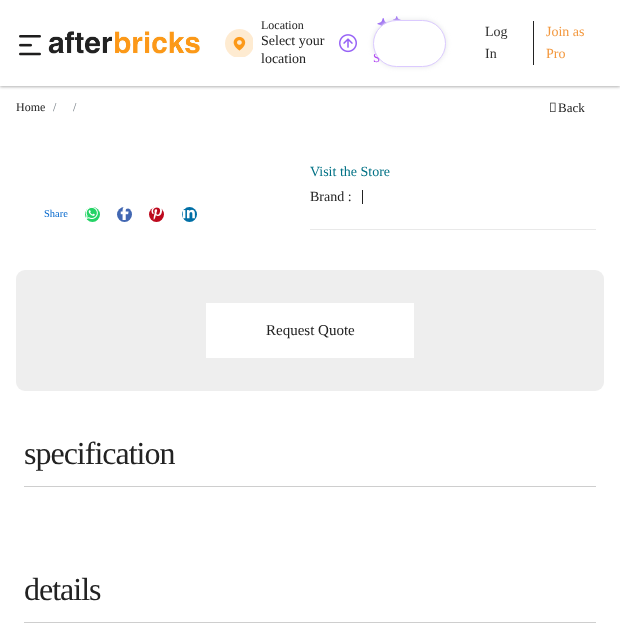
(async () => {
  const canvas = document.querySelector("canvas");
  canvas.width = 620;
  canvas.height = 625;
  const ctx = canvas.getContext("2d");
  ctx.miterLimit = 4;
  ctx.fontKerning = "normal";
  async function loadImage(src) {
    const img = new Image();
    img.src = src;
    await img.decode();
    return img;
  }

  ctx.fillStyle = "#ffffff";
  ctx.fillRect(0, 0, 620, 625);
  ctx.fillStyle = "rgba(0, 0, 0, 0.3)";
  ctx.filter = "blur(1.5px)";
  ctx.beginPath();
  ctx.rect(0, 1, 620, 86);
  ctx.fill();
  ctx.filter = "none";
  ctx.fillStyle = "#ffffff";
  ctx.fillRect(0, 0, 620, 86);
  ctx.drawImage(await loadImage("img/1.png"), 19, 35, 22, 21);
  ctx.drawImage(await loadImage("img/2.png"), 48, 30, 152, 24);
  ctx.drawImage(await loadImage("img/3.png"), 225, 29, 28, 28);
  ctx.drawImage(await loadImage("img/4.png"), 339, 34, 18, 19);
  ctx.drawImage(await loadImage("img/5.png"), 377, 16, 24, 10);
  ctx.fillStyle = "#e4e5e7";
  ctx.filter = "blur(2.5px)";
  ctx.beginPath();
  ctx.roundRect(373, 20, 73, 47, 23.5);
  ctx.fill();
  ctx.filter = "none";
  ctx.fillStyle = "#222222";
  ctx.fillRect(533, 21, 1, 44);
  ctx.drawImage(await loadImage("img/6.png"), 550, 102, 6, 10);
  ctx.fillStyle = "#e9e9e9";
  ctx.fillRect(310, 229, 286, 1);
  ctx.fillStyle = "#222222";
  ctx.fillRect(362, 190, 1, 14);
  ctx.fillStyle = "#25d366";
  ctx.beginPath();
  ctx.arc(92.5, 214.5, 7.5, 0, Math.PI * 2);
  ctx.fill();
  ctx.drawImage(await loadImage("img/7.png"), 85, 207, 13, 12);
  ctx.fillStyle = "#4267b2";
  ctx.beginPath();
  ctx.arc(124.5, 214.5, 7.5, 0, Math.PI * 2);
  ctx.fill();
  ctx.drawImage(await loadImage("img/8.png"), 120, 207, 9, 13);
  ctx.fillStyle = "#bd091d";
  ctx.beginPath();
  ctx.arc(156.5, 214.5, 7.5, 0, Math.PI * 2);
  ctx.fill();
  ctx.drawImage(await loadImage("img/9.png"), 151, 207, 11, 13);
  ctx.fillStyle = "#006fa6";
  ctx.beginPath();
  ctx.arc(189.5, 214.5, 7.5, 0, Math.PI * 2);
  ctx.fill();
  ctx.drawImage(await loadImage("img/10.png"), 182, 208, 13, 11);
  ctx.fillStyle = "#eeeeee";
  ctx.beginPath();
  ctx.roundRect(16, 270, 588, 121, 9);
  ctx.fill();
  for (const [x, y, w, h, color] of [
    [206, 303, 208, 55, "#ffffff"],
    [24, 486, 572, 1, "#cecece"],
    [24, 622, 572, 1, "#cecece"],
  ]) {
    ctx.fillStyle = color;
    ctx.fillRect(x, y, w, h);
  }
  ctx.font = "12px Liberation Serif";
  ctx.fillStyle = "#222222";
  ctx.fillText("Location", 261, 29);
  ctx.font = "14px Liberation Serif";
  ctx.fillText("Select your", 261, 45);
  ctx.fillText("location", 261, 63);
  ctx.font = "13px Liberation Serif";
  ctx.fillStyle = "#af44f2";
  ctx.fillText("S", 373, 62);
  ctx.fillStyle = "#ffffff";
  ctx.beginPath();
  ctx.roundRect(373.5, 20.5, 72, 46, 23);
  ctx.fill();
  ctx.strokeStyle = "#dbcaff";
  ctx.stroke();
  ctx.font = "14px Liberation Serif";
  ctx.fillStyle = "#313131";
  ctx.fillText("Log", 485, 36);
  ctx.fillText("In", 485, 58);
  ctx.fillStyle = "#f3983e";
  ctx.fillText("Join as", 546, 36);
  ctx.fillText("Pro", 546, 58);
  ctx.font = "12px Liberation Serif";
  ctx.fillStyle = "#222222";
  ctx.fillText("Home", 16, 111);
  ctx.fillStyle = "#6c757d";
  ctx.fillText("/", 53, 111);
  ctx.fillText("/", 73, 111);
  ctx.font = "13px Liberation Serif";
  ctx.fillStyle = "#222222";
  ctx.fillText("Back", 558, 112);
  ctx.font = "14px Liberation Serif";
  ctx.fillStyle = "#007185";
  ctx.fillText("Visit the Store", 310, 176);
  ctx.fillStyle = "#222222";
  ctx.fillText("Brand :", 310, 201);
  ctx.font = "10.5px Liberation Serif";
  ctx.fillStyle = "#0066cc";
  ctx.fillText("Share", 44, 217);
  ctx.font = "15px Liberation Serif";
  ctx.fillStyle = "#222222";
  ctx.fillText("Request Quote", 266, 335);
  ctx.letterSpacing = "-1px";
  ctx.font = "32px Liberation Serif";
  ctx.fillText("specification", 24, 464);
  ctx.fillText("details", 24, 600);
})();
